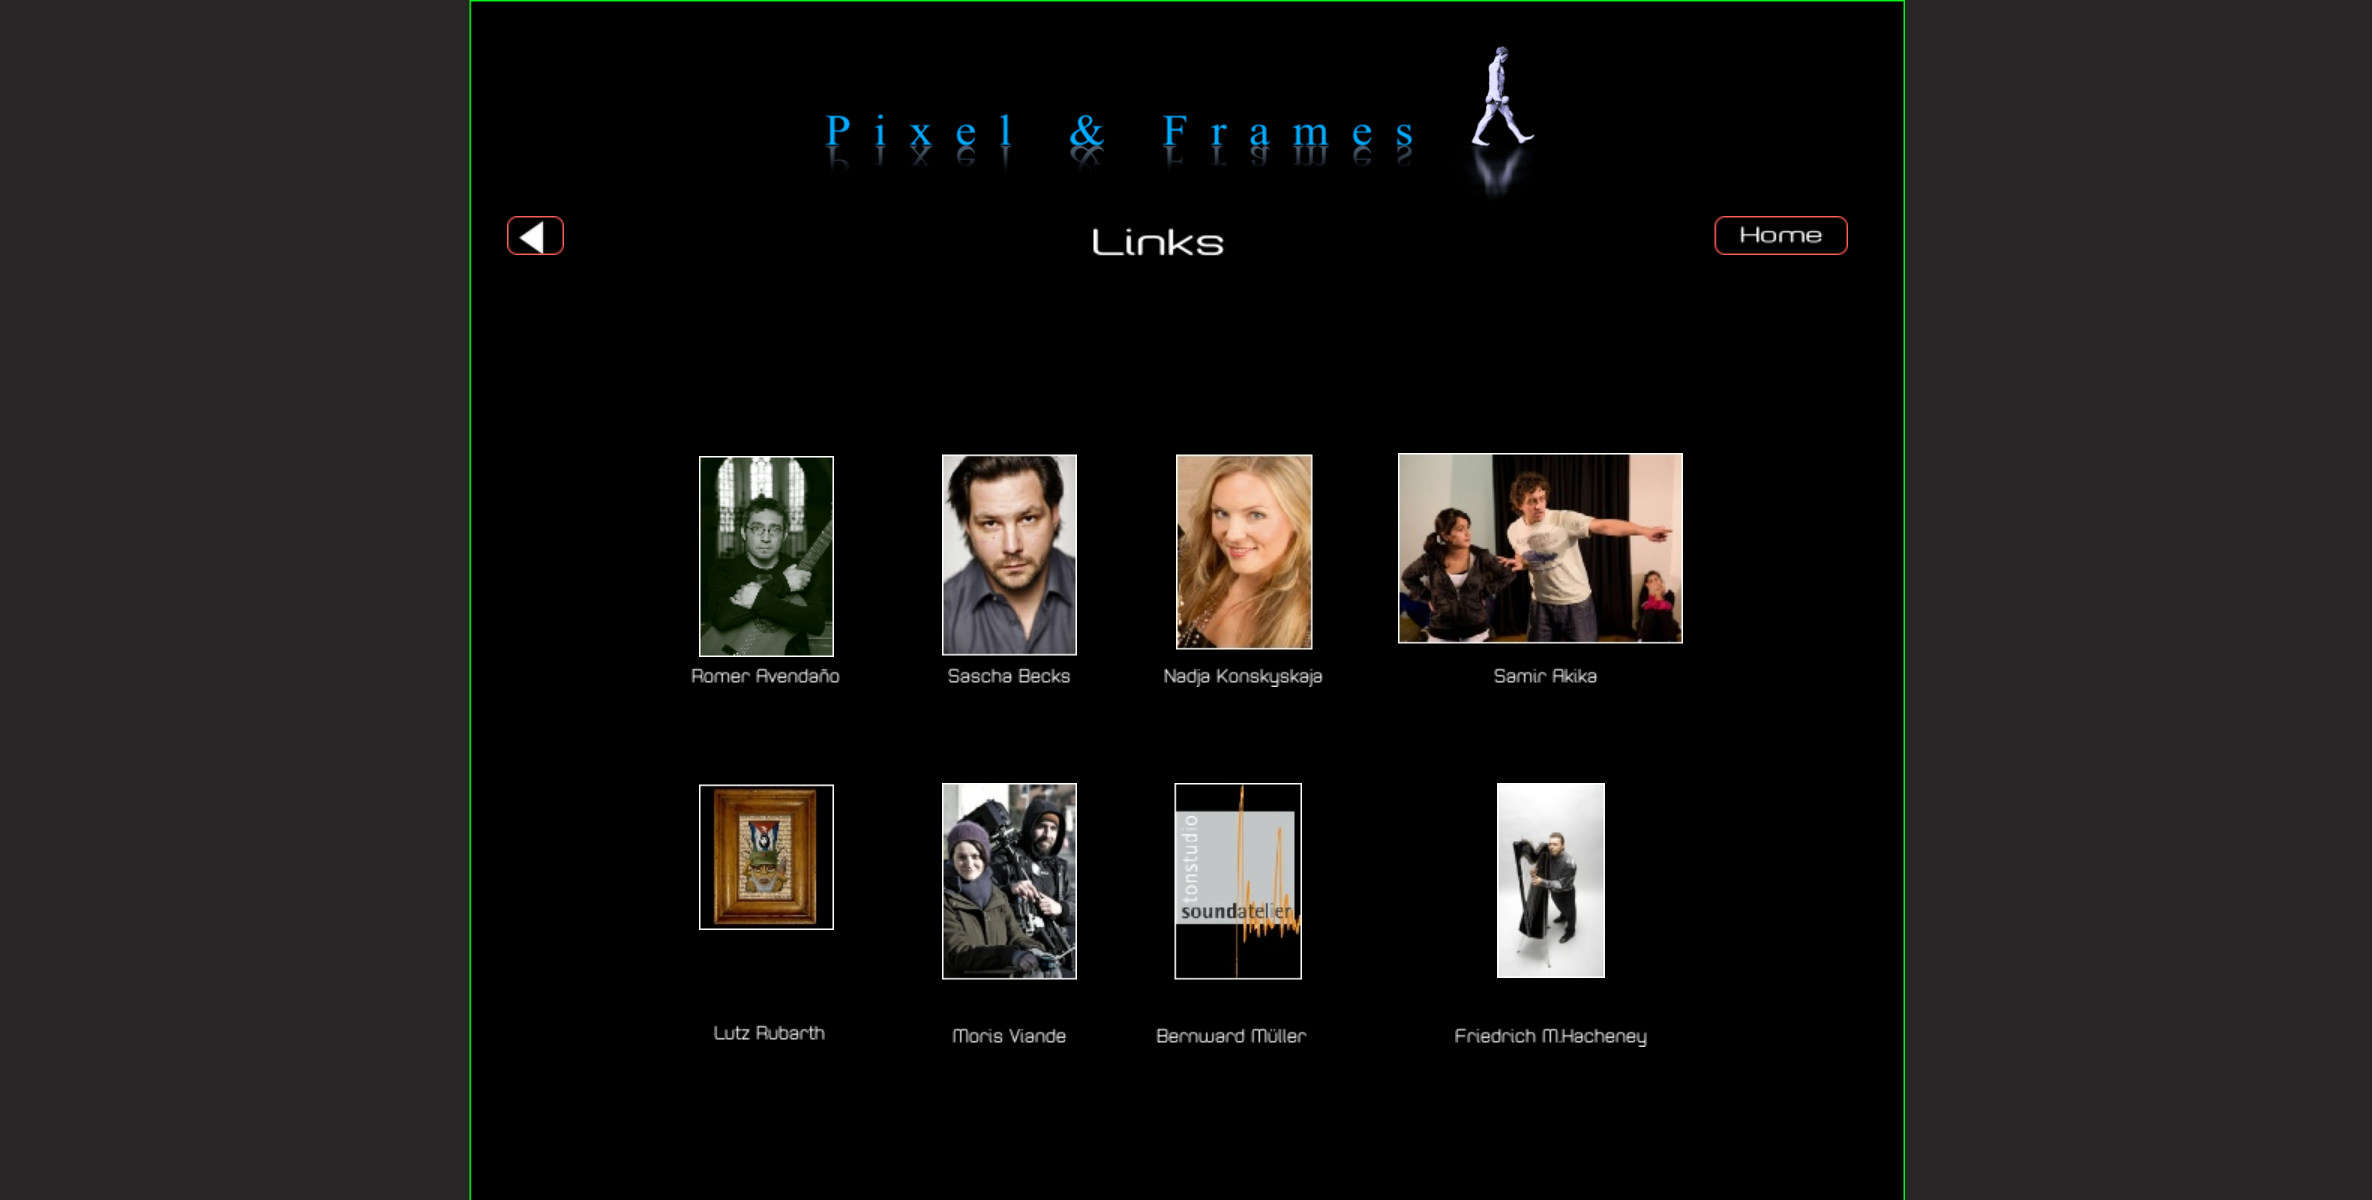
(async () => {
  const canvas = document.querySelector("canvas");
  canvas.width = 2372;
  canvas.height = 1200;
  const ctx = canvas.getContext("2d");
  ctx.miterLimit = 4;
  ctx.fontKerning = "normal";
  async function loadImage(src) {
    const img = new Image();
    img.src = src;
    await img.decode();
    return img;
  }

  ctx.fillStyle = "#272525";
  ctx.fillRect(0, 0, 2372, 1200);
  ctx.drawImage(await loadImage("img/1.png"), 469, 0, 1436, 1200);
  ctx.drawImage(await loadImage("img/2.png"), 824, 46, 711, 155);
  ctx.drawImage(await loadImage("img/5.png"), 518, 220, 27, 36);
  ctx.drawImage(await loadImage("img/3.png"), 507, 216, 57, 39);
  ctx.drawImage(await loadImage("img/4.png"), 1714, 216, 134, 39);
  ctx.drawImage(await loadImage("img/6.png"), 1093, 227, 132, 29);
  ctx.drawImage(await loadImage("img/7.png"), 699, 456, 135, 201);
  ctx.drawImage(await loadImage("img/8.png"), 942, 454, 135, 202);
  ctx.drawImage(await loadImage("img/9.png"), 1176, 454, 137, 196);
  ctx.drawImage(await loadImage("img/10.png"), 1398, 453, 285, 191);
  ctx.drawImage(await loadImage("img/11.png"), 691, 667, 149, 16);
  ctx.drawImage(await loadImage("img/12.png"), 948, 667, 123, 16);
  ctx.drawImage(await loadImage("img/13.png"), 1164, 668, 159, 19);
  ctx.drawImage(await loadImage("img/14.png"), 1494, 667, 104, 16);
  ctx.drawImage(await loadImage("img/15.png"), 699, 784, 135, 146);
  ctx.drawImage(await loadImage("img/16.png"), 942, 783, 135, 197);
  ctx.drawImage(await loadImage("img/17.png"), 1174, 783, 128, 197);
  ctx.drawImage(await loadImage("img/18.png"), 1497, 783, 108, 195);
  ctx.drawImage(await loadImage("img/19.png"), 714, 1024, 111, 16);
  ctx.drawImage(await loadImage("img/20.png"), 952, 1027, 115, 16);
  ctx.drawImage(await loadImage("img/21.png"), 1156, 1027, 151, 16);
  ctx.drawImage(await loadImage("img/22.png"), 1455, 1027, 192, 20);
})();
